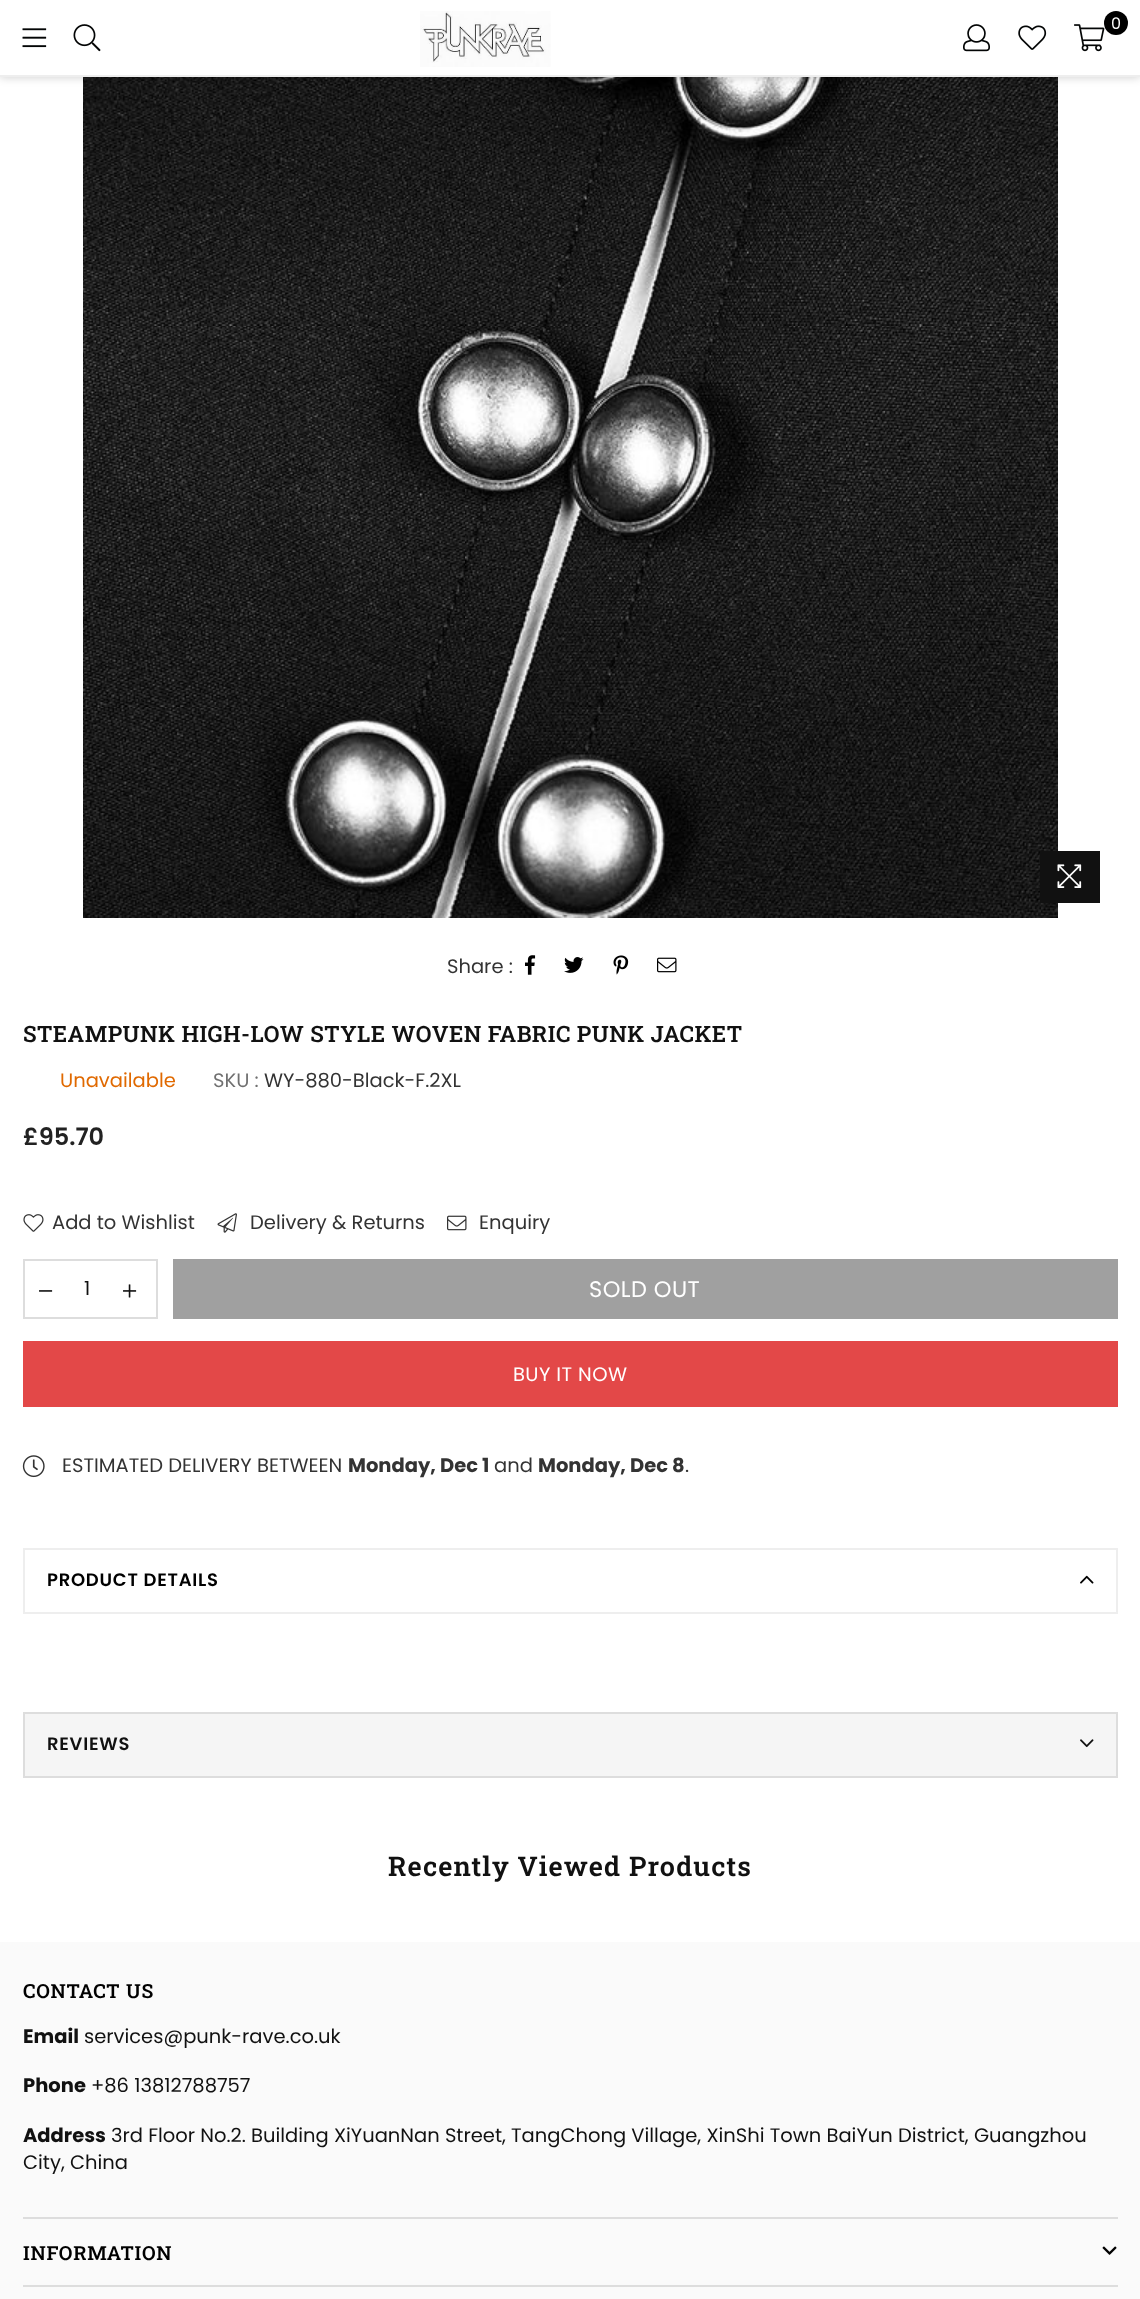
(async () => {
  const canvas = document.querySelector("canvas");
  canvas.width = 1140;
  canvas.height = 2299;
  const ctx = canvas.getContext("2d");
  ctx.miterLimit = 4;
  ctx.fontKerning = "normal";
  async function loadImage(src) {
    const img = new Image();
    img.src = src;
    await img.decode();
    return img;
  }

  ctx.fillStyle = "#ffffff";
  ctx.fillRect(0, 0, 1140, 2299);
  ctx.drawImage(await loadImage("img/7.png"), 83, 77, 975, 841);
  ctx.fillStyle = "rgba(0, 0, 0, 0.2)";
  ctx.filter = "blur(5px)";
  ctx.beginPath();
  ctx.rect(0, 0, 1140, 77);
  ctx.fill();
  ctx.filter = "none";
  ctx.fillStyle = "#ffffff";
  ctx.fillRect(0, 0, 1140, 75);
  ctx.fillStyle = "#eeeeee";
  ctx.fillRect(0, 75, 1140, 2);
  ctx.drawImage(await loadImage("img/1.png"), 420, 11, 131, 56);
  ctx.drawImage(await loadImage("img/2.png"), 1074, 24, 31, 28);
  ctx.fillStyle = "#000000";
  ctx.beginPath();
  ctx.arc(1116, 23, 12, 0, Math.PI * 2);
  ctx.fill();
  ctx.drawImage(await loadImage("img/3.png"), 963, 24, 27, 28);
  ctx.drawImage(await loadImage("img/4.png"), 1018, 25, 29, 25);
  ctx.drawImage(await loadImage("img/5.png"), 22, 28, 25, 20);
  ctx.drawImage(await loadImage("img/6.png"), 73, 24, 28, 28);
  ctx.fillStyle = "#111111";
  ctx.fillRect(1040, 851, 60, 52);
  ctx.drawImage(await loadImage("img/8.png"), 1057, 864, 25, 24);
  ctx.drawImage(await loadImage("img/9.png"), 525, 955, 11, 20);
  ctx.drawImage(await loadImage("img/10.png"), 564, 957, 20, 16);
  ctx.drawImage(await loadImage("img/11.png"), 613, 955, 16, 20);
  ctx.drawImage(await loadImage("img/12.png"), 657, 957, 20, 16);
  ctx.drawImage(await loadImage("img/13.png"), 23, 1214, 21, 18);
  ctx.drawImage(await loadImage("img/14.png"), 217, 1213, 20, 20);
  ctx.drawImage(await loadImage("img/15.png"), 447, 1215, 20, 16);
  ctx.strokeStyle = "#dddddd";
  ctx.lineWidth = 2;
  ctx.strokeRect(24, 1260, 133, 58);
  ctx.drawImage(await loadImage("img/16.png"), 39, 1290, 14, 2);
  ctx.drawImage(await loadImage("img/17.png"), 123, 1284, 14, 14);
  ctx.fillStyle = "#a0a0a0";
  ctx.fillRect(173, 1259, 945, 60);
  ctx.fillStyle = "#e34848";
  ctx.fillRect(23, 1341, 1095, 66);
  ctx.drawImage(await loadImage("img/18.png"), 22, 1455, 23, 23);
  ctx.strokeStyle = "#eeeeee";
  ctx.strokeRect(24, 1549, 1093, 64);
  ctx.drawImage(await loadImage("img/19.png"), 1080, 1575, 14, 9);
  ctx.fillStyle = "#f5f5f5";
  ctx.beginPath();
  ctx.rect(24, 1713, 1093, 64);
  ctx.fill();
  ctx.strokeStyle = "#dddddd";
  ctx.stroke();
  ctx.drawImage(await loadImage("img/20.png"), 1080, 1739, 14, 9);
  ctx.fillStyle = "#fafafa";
  ctx.fillRect(0, 1942, 1140, 357);
  ctx.fillStyle = "#dddddd";
  ctx.fillRect(23, 2217, 1095, 2);
  ctx.drawImage(await loadImage("img/21.png"), 1102, 2246, 15, 9);
  ctx.fillRect(23, 2285, 1095, 2);
  ctx.font = "16px Poppins";
  ctx.fillStyle = "#ffffff";
  ctx.fillText("0", 1111, 29);
  ctx.font = "19.5px Poppins";
  ctx.fillStyle = "#333333";
  ctx.fillText("Share :", 447, 973);
  ctx.letterSpacing = "0.45px";
  ctx.font = "600 22.5px Roboto Slab";
  ctx.fillStyle = "#111111";
  ctx.fillText("STEAMPUNK HIGH-LOW STYLE WOVEN FABRIC PUNK JACKET", 23, 1042);
  ctx.letterSpacing = "0px";
  ctx.font = "19.5px Poppins";
  ctx.fillStyle = "#e06900";
  ctx.fillText("Unavailable", 60, 1087);
  ctx.fillStyle = "#707070";
  ctx.fillText("SKU :", 213, 1087);
  ctx.fillStyle = "#333333";
  ctx.fillText("WY-880-Black-F.2XL", 264, 1087);
  ctx.font = "600 24px Poppins";
  ctx.fillStyle = "#222222";
  ctx.fillText("£95.70", 23, 1145);
  ctx.font = "19.5px Poppins";
  ctx.fillStyle = "#333333";
  for (const [text, x, y] of [
    ["Add to Wishlist", 52, 1229],
    ["Delivery & Returns", 250, 1229],
    ["Enquiry", 479, 1229],
  ]) {
    ctx.fillText(text, x, y);
  }
  ctx.fillStyle = "#111111";
  ctx.fillText("1", 84, 1295);
  ctx.letterSpacing = "0.45px";
  ctx.font = "22.5px Poppins";
  ctx.fillStyle = "#ffffff";
  ctx.fillText("SOLD OUT", 589, 1297);
  ctx.letterSpacing = "0.4px";
  ctx.font = "19.5px Poppins";
  ctx.fillText("BUY IT NOW", 513, 1381);
  ctx.letterSpacing = "0px";
  ctx.fillStyle = "#333333";
  ctx.fillText("ESTIMATED DELIVERY BETWEEN", 62, 1472);
  ctx.font = "bold 19.5px Poppins";
  ctx.fillText("Monday, Dec 1", 348, 1472);
  ctx.font = "19.5px Poppins";
  ctx.fillText("and", 494, 1472);
  ctx.font = "bold 19.5px Poppins";
  ctx.fillText("Monday, Dec 8", 538, 1472);
  ctx.font = "19.5px Poppins";
  ctx.fillText(".", 685, 1472);
  ctx.letterSpacing = "0.75px";
  ctx.font = "600 18px Poppins";
  ctx.fillStyle = "#000000";
  ctx.fillText("PRODUCT DETAILS", 47, 1586);
  ctx.fillStyle = "#111111";
  ctx.fillText("REVIEWS", 47, 1750);
  ctx.letterSpacing = "1.1px";
  ctx.font = "600 27px Roboto Slab";
  ctx.fillText("Recently Viewed Products", 388, 1876);
  ctx.letterSpacing = "0.75px";
  ctx.font = "600 19.5px Roboto Slab";
  ctx.fillStyle = "#000000";
  ctx.fillText("CONTACT US", 23, 1998);
  ctx.letterSpacing = "0px";
  ctx.font = "bold 19.5px Poppins";
  ctx.fillStyle = "#111111";
  ctx.fillText("Email", 23, 2043);
  ctx.font = "19.5px Poppins";
  ctx.fillText("services@punk-rave.co.uk", 84, 2043);
  ctx.font = "bold 19.5px Poppins";
  ctx.fillText("Phone", 23, 2092);
  ctx.font = "19.5px Poppins";
  ctx.fillText("+86 13812788757", 91, 2092);
  ctx.font = "bold 19.5px Poppins";
  ctx.fillText("Address", 23, 2142);
  ctx.font = "19.5px Poppins";
  ctx.fillText("3rd Floor No.2. Building XiYuanNan Street, TangChong Village, XinShi Town BaiYun District, Guangzhou", 111, 2142);
  ctx.fillText("City, China", 23, 2169);
  ctx.letterSpacing = "0.75px";
  ctx.font = "600 19.5px Roboto Slab";
  ctx.fillStyle = "#000000";
  ctx.fillText("INFORMATION", 23, 2260);
})();
